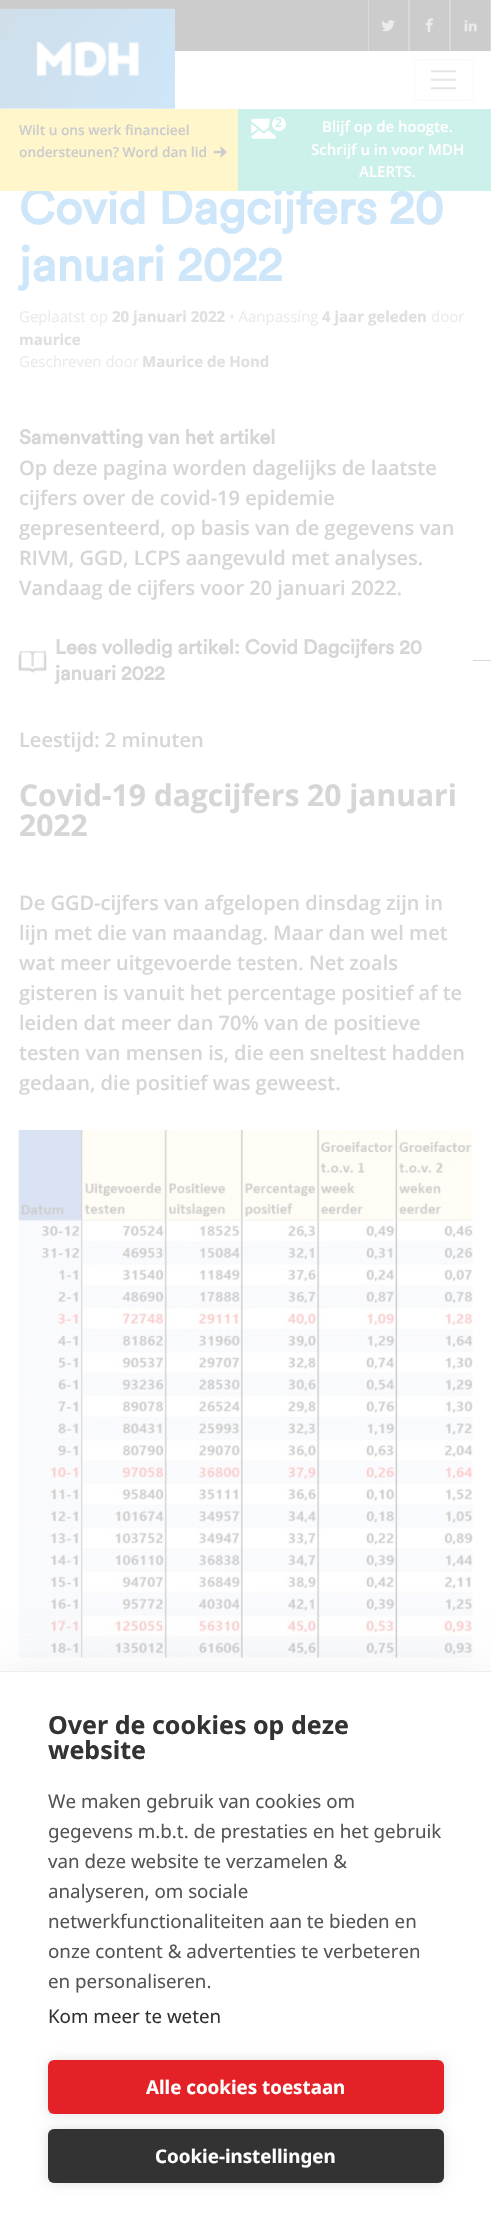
void draw(SkCanvas* canvas) {
    SkPaint paint;
    paint.setAntiAlias(true);
    auto face = [&](const char* family, int weight, float size, bool italic = false) {
        SkFontStyle style(weight, SkFontStyle::kNormal_Width,
            italic ? SkFontStyle::kItalic_Slant : SkFontStyle::kUpright_Slant);
        SkFont result(fontMgr->matchFamilyStyle(family, style), size);
        result.setSubpixel(true);
        return result;
    };
    auto write = [&](const char* s, float x, float y, const SkFont& font, SkColor color) {
        SkPaint ink(SkColor4f::FromColor(color));
        ink.setAntiAlias(true);
        canvas->drawString(s, x, y, font, ink);
    };
    auto block = [&](float x, float y, float w, float h, SkColor color) {
        SkPaint ink(SkColor4f::FromColor(color));
        ink.setAntiAlias(true);
        canvas->drawRect(SkRect::MakeXYWH(x, y, w, h), ink);
    };
    auto card = [&](float x, float y, float w, float h, float radius, SkColor color) {
        SkPaint ink(SkColor4f::FromColor(color));
        ink.setAntiAlias(true);
        canvas->drawRoundRect(SkRect::MakeXYWH(x, y, w, h), radius, radius, ink);
    };
    auto paste = [&](const char* path, float x, float y, float w, float h) {
        auto image = SkImages::DeferredFromEncodedData(SkData::MakeFromFileName(path));
        canvas->drawImageRect(image, SkRect::MakeXYWH(x, y, w, h), SkSamplingOptions());
    };
    canvas->clear(SK_ColorWHITE);
    block(0, 0, 490, 51, SkColorSetRGB(204, 204, 204));
    block(408, 0, 2, 51, SkColorSetRGB(217, 217, 217));
    block(368, 0, 1, 51, SkColorSetRGB(217, 217, 217));
    paste("pic1.png", 381, 20, 14, 12);
    block(449, 0, 2, 51, SkColorSetRGB(217, 217, 217));
    paste("pic2.png", 425, 18, 8, 15);
    block(490, 0, 1, 51, SkColorSetRGB(217, 217, 217));
    paste("pic3.png", 464, 20, 13, 12);
    paste("pic4.png", 0, 8, 175, 101);
    paint.setStyle(SkPaint::kStroke_Style);
    paint.setStrokeWidth(1);
    paint.setColor(SkColorSetRGB(249, 249, 249));
    canvas->drawRoundRect(SkRect::MakeXYWH(414.5f, 59.5f, 59, 41), 3.5f, 3.5f, paint);
    paste("pic5.png", 430, 70, 27, 20);
    auto kFont1 = face("Circular", 700, 47.9f);
    write("Covid Dagcijfers 20", 19, 224, kFont1, SkColorSetRGB(206, 230, 249));
    block(0, 109, 238, 82, SkColorSetRGB(255, 246, 204));
    auto kFont2 = face("Open Sans", 600, 13.75f);
    write("Wilt u ons werk financieel", 19, 135, kFont2, SkColorSetRGB(204, 204, 204));
    write("ondersteunen? Word dan lid", 19, 157, kFont2, SkColorSetRGB(204, 204, 204));
    paste("pic6.png", 213, 146, 14, 13);
    block(238, 109, 253, 82, SkColorSetRGB(204, 241, 234));
    paste("pic7.png", 251, 118, 26, 21);
    paint.setStyle(SkPaint::kFill_Style);
    paint.setColor(SK_ColorWHITE);
    canvas->drawCircle(279, 124, 8.5f, paint);
    paint.setStyle(SkPaint::kStroke_Style);
    paint.setStrokeWidth(3);
    paint.setColor(SkColorSetRGB(204, 241, 234));
    canvas->drawCircle(279, 124, 8.5f, paint);
    auto kFont3 = face("Open Sans", 700, 12);
    write("2", 275, 127, kFont3, SkColorSetRGB(204, 241, 234));
    auto kFont4 = face("Open Sans", 600, 15);
    write("Blijf op de hoogte.", 322, 132, kFont4, SK_ColorWHITE);
    write("Schrijf u in voor MDH", 311, 155, kFont4, SK_ColorWHITE);
    write("ALERTS.", 359, 177, kFont4, SK_ColorWHITE);
    write("januari 2022", 19, 281, kFont1, SkColorSetRGB(206, 230, 249));
    auto kFont5 = face("Open Sans", 400, 15);
    write("Geplaatst op", 19, 322, kFont5, SkColorSetRGB(235, 235, 235));
    auto kFont6 = face("Open Sans", 700, 15);
    write("20 januari 2022", 112, 322, kFont6, SkColorSetRGB(224, 224, 224));
    write("• Aanpassing", 229, 322, kFont5, SkColorSetRGB(235, 235, 235));
    write("4 jaar geleden", 322, 322, kFont6, SkColorSetRGB(224, 224, 224));
    write("door", 431, 322, kFont5, SkColorSetRGB(235, 235, 235));
    write("maurice", 19, 345, kFont6, SkColorSetRGB(224, 224, 224));
    write("Geschreven door", 19, 367, kFont5, SkColorSetRGB(235, 235, 235));
    write("Maurice de Hond", 142, 367, kFont6, SkColorSetRGB(224, 224, 224));
    auto kFont7 = face("Circular", 700, 20);
    write("Samenvatting van het artikel", 19, 444, kFont7, SkColorSetRGB(214, 214, 214));
    auto kFont8 = face("Open Sans", 600, 20);
    write("Op deze pagina worden dagelijks de laatste", 19, 475, kFont8, SkColorSetRGB(214, 214, 214));
    write("cijfers over de covid-19 epidemie", 19, 505, kFont8, SkColorSetRGB(214, 214, 214));
    write("gepresenteerd, op basis van de gegevens van", 19, 535, kFont8, SkColorSetRGB(214, 214, 214));
    write("RIVM, GGD, LCPS aangevuld met analyses.", 19, 565, kFont8, SkColorSetRGB(214, 214, 214));
    write("Vandaag de cijfers voor 20 januari 2022.", 19, 595, kFont8, SkColorSetRGB(214, 214, 214));
    paste("pic8.png", 18, 651, 29, 22);
    write("Lees volledig artikel: Covid Dagcijfers 20", 55, 654, kFont7, SkColorSetRGB(214, 214, 214));
    write("januari 2022", 55, 680, kFont7, SkColorSetRGB(214, 214, 214));
    block(473, 660, 18, 1, SkColorSetRGB(216, 216, 216));
    write("Leestijd: 2 minuten", 19, 747, kFont8, SkColorSetRGB(214, 214, 214));
    auto kFont9 = face("Open Sans", 700, 30);
    write("Covid-19 dagcijfers 20 januari", 19, 806, kFont9, SkColorSetRGB(214, 214, 214));
    write("2022", 19, 836, kFont9, SkColorSetRGB(214, 214, 214));
    write("De GGD-cijfers van afgelopen dinsdag zijn in", 19, 910, kFont8, SkColorSetRGB(214, 214, 214));
    write("lijn met die van maandag. Maar dan wel met", 19, 940, kFont8, SkColorSetRGB(214, 214, 214));
    write("wat meer uitgevoerde testen. Net zoals", 19, 970, kFont8, SkColorSetRGB(214, 214, 214));
    write("gisteren is vanuit het percentage positief af te", 19, 1000, kFont8, SkColorSetRGB(214, 214, 214));
    write("leiden dat meer dan 70% van de positieve", 19, 1030, kFont8, SkColorSetRGB(214, 214, 214));
    write("testen van mensen is, die een sneltest hadden", 19, 1060, kFont8, SkColorSetRGB(214, 214, 214));
    write("gedaan, die positief was geweest.", 19, 1090, kFont8, SkColorSetRGB(214, 214, 214));
    paste("pic9.png", 18, 1130, 455, 528);
    paint.setStyle(SkPaint::kFill_Style);
    paint.setColor(SkColorSetARGB(26, 0, 0, 0));
    paint.setMaskFilter(SkMaskFilter::MakeBlur(kNormal_SkBlurStyle, 25));
    canvas->drawRect(SkRect::MakeXYWH(0, 1684, 491, 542), paint);
    paint.setMaskFilter(nullptr);
    block(0, 1672, 491, 541, SK_ColorWHITE);
    block(0, 1671, 491, 1, SkColorSetRGB(238, 238, 238));
    auto kFont10 = face("Noto Sans", 700, 25);
    write("Over de cookies op deze", 48, 1734, kFont10, SkColorSetRGB(51, 51, 51));
    write("website", 48, 1759, kFont10, SkColorSetRGB(51, 51, 51));
    auto kFont11 = face("Noto Sans", 400, 18.75f);
    write("We maken gebruik van cookies om", 48, 1808, kFont11, SkColorSetRGB(85, 85, 85));
    write("gegevens m.b.t. de prestaties en het gebruik", 48, 1838, kFont11, SkColorSetRGB(85, 85, 85));
    write("van deze website te verzamelen &", 48, 1868, kFont11, SkColorSetRGB(85, 85, 85));
    write("analyseren, om sociale", 48, 1898, kFont11, SkColorSetRGB(85, 85, 85));
    write("netwerkfunctionaliteiten aan te bieden en", 48, 1928, kFont11, SkColorSetRGB(85, 85, 85));
    write("onze content & advertenties te verbeteren", 48, 1958, kFont11, SkColorSetRGB(85, 85, 85));
    write("en personaliseren.", 48, 1988, kFont11, SkColorSetRGB(85, 85, 85));
    write("Kom meer te weten", 48, 2023, kFont11, SkColorSetRGB(51, 51, 51));
    paint.setColor(SkColorSetARGB(31, 0, 0, 0));
    paint.setMaskFilter(SkMaskFilter::MakeBlur(kNormal_SkBlurStyle, 6));
    canvas->drawRoundRect(SkRect::MakeXYWH(48, 2060, 396, 54), 6, 6, paint);
    paint.setMaskFilter(nullptr);
    card(48, 2060, 396, 54, 6, SkColorSetRGB(228, 33, 39));
    auto kFont12 = face("Noto Sans", 700, 18.75f);
    write("Alle cookies toestaan", 146, 2094, kFont12, SK_ColorWHITE);
    paint.setMaskFilter(SkMaskFilter::MakeBlur(kNormal_SkBlurStyle, 6));
    canvas->drawRoundRect(SkRect::MakeXYWH(48, 2129, 396, 54), 6, 6, paint);
    paint.setMaskFilter(nullptr);
    card(48, 2129, 396, 54, 6, SkColorSetRGB(51, 51, 51));
    write("Cookie-instellingen", 155, 2163, kFont12, SK_ColorWHITE);
}
